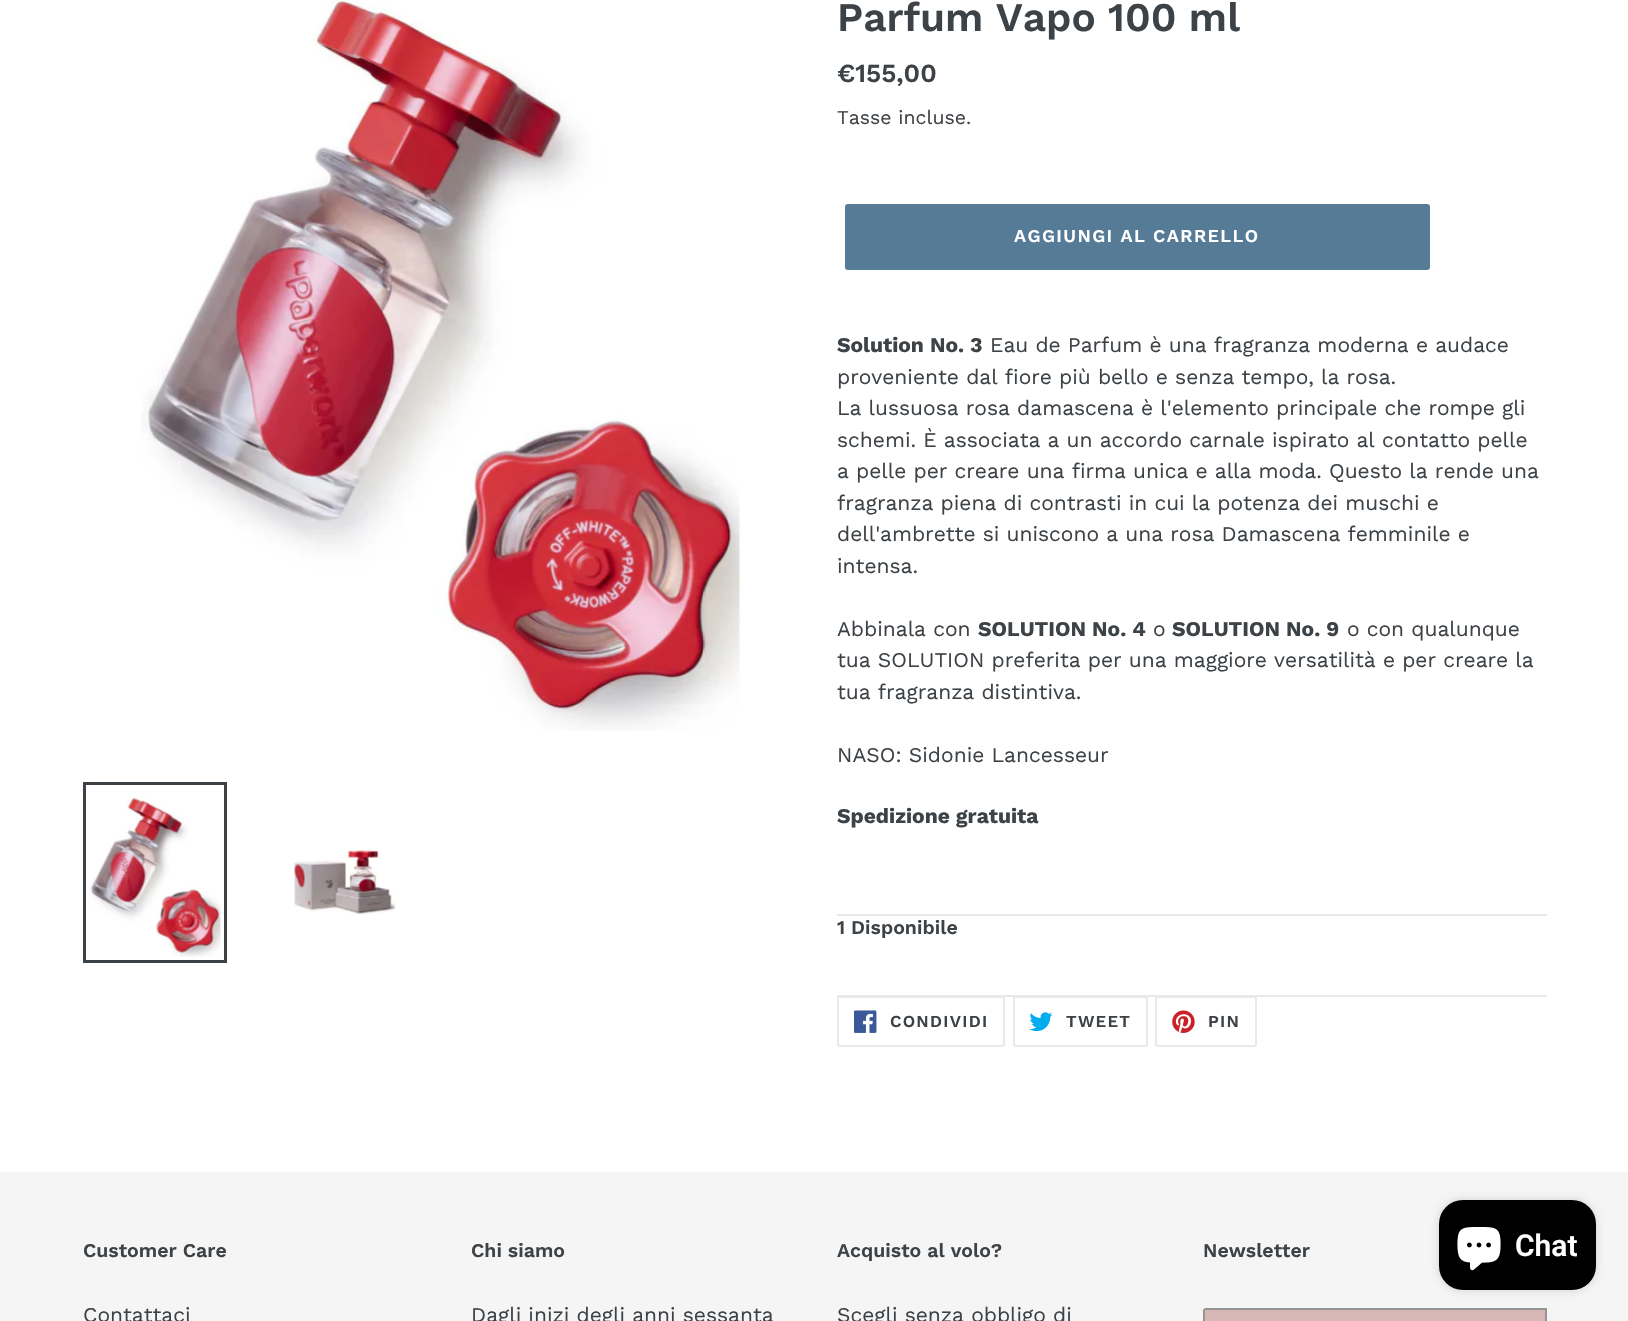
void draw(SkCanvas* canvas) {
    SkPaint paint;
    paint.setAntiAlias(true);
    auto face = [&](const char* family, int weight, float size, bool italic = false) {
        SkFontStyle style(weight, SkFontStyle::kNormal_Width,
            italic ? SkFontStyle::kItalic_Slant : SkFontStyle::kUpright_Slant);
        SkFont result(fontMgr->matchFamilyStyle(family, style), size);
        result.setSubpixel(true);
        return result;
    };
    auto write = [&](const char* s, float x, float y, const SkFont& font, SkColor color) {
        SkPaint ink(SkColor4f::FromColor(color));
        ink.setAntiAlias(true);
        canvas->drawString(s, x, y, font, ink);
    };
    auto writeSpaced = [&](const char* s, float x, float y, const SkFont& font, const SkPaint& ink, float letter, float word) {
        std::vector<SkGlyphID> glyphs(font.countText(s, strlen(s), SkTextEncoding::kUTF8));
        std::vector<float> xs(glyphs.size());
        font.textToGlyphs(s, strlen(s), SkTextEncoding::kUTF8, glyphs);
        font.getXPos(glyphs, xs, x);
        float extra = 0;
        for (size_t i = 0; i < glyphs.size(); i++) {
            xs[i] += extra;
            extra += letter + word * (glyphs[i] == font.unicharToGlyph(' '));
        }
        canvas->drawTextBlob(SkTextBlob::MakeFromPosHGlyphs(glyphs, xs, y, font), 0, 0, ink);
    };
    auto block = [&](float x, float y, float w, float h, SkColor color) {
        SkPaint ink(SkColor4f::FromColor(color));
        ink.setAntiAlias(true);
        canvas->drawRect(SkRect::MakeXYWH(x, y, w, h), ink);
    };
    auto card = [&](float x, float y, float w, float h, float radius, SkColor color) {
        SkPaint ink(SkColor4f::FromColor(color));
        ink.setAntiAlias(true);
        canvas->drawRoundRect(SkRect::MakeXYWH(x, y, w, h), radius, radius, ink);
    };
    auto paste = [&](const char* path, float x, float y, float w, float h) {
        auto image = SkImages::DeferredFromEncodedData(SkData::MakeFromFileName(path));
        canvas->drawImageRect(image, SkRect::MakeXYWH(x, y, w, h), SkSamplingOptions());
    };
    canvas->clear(SK_ColorWHITE);
    paste("pic1.png", 141, 0, 600, 731);
    paint.setStyle(SkPaint::kStroke_Style);
    paint.setStrokeWidth(3);
    paint.setColor(SkColorSetRGB(61, 66, 70));
    canvas->drawRect(SkRect::MakeXYWH(84.5f, 783.5f, 141, 178), paint);
    paste("pic2.png", 89, 797, 132, 160);
    paste("pic3.png", 294, 850, 102, 65);
    auto kFont1 = face("Work Sans", 600, 40.5f);
    write("Parfum Vapo 100 ml", 837, 31, kFont1, SkColorSetRGB(61, 66, 70));
    auto kFont2 = face("Work Sans", 600, 26);
    write("€155,00", 837, 82, kFont2, SkColorSetRGB(61, 66, 70));
    auto kFont3 = face("Work Sans", 400, 19.5f);
    write("Tasse incluse.", 837, 124, kFont3, SkColorSetRGB(61, 66, 70));
    card(845, 204, 585, 66, 3, SkColorSetRGB(85, 123, 151));
    auto kFont4 = face("Work Sans", 600, 18);
    paint.setStyle(SkPaint::kFill_Style);
    paint.setColor(SK_ColorWHITE);
    writeSpaced("AGGIUNGI AL CARRELLO", 1014, 242, kFont4, paint, 1.4f, 0);
    auto kFont5 = face("Work Sans", 700, 21);
    write("Solution No. 3", 837, 352, kFont5, SkColorSetRGB(61, 66, 70));
    auto kFont6 = face("Work Sans", 400, 21);
    write("Eau de Parfum è una fragranza moderna e audace", 990, 352, kFont6, SkColorSetRGB(61, 66, 70));
    write("proveniente dal fiore più bello e senza tempo, la rosa.", 837, 384, kFont6, SkColorSetRGB(61, 66, 70));
    write("La lussuosa rosa damascena è l'elemento principale che rompe gli", 837, 415, kFont6, SkColorSetRGB(61, 66, 70));
    write("schemi. È associata a un accordo carnale ispirato al contatto pelle", 837, 447, kFont6, SkColorSetRGB(61, 66, 70));
    write("a pelle per creare una firma unica e alla moda. Questo la rende una", 837, 478, kFont6, SkColorSetRGB(61, 66, 70));
    write("fragranza piena di contrasti in cui la potenza dei muschi e", 837, 510, kFont6, SkColorSetRGB(61, 66, 70));
    write("dell'ambrette si uniscono a una rosa Damascena femminile e", 837, 541, kFont6, SkColorSetRGB(61, 66, 70));
    write("intensa.", 837, 573, kFont6, SkColorSetRGB(61, 66, 70));
    write("Abbinala con", 837, 636, kFont6, SkColorSetRGB(61, 66, 70));
    write("SOLUTION No. 4", 978, 636, kFont5, SkColorSetRGB(61, 66, 70));
    write("o", 1153, 636, kFont6, SkColorSetRGB(61, 66, 70));
    write("SOLUTION No. 9", 1172, 636, kFont5, SkColorSetRGB(61, 66, 70));
    write("o con qualunque", 1347, 636, kFont6, SkColorSetRGB(61, 66, 70));
    write("tua SOLUTION preferita per una maggiore versatilità e per creare la", 837, 667, kFont6, SkColorSetRGB(61, 66, 70));
    write("tua fragranza distintiva.", 837, 699, kFont6, SkColorSetRGB(61, 66, 70));
    write("NASO: Sidonie Lancesseur", 837, 762, kFont6, SkColorSetRGB(61, 66, 70));
    write("Spedizione gratuita", 837, 823, kFont5, SkColorSetRGB(61, 66, 70));
    block(837, 914, 710, 2, SkColorSetRGB(232, 233, 235));
    auto kFont7 = face("Work Sans", 600, 19.5f);
    write("1 Disponibile", 837, 934, kFont7, SkColorSetRGB(61, 66, 70));
    paint.setStyle(SkPaint::kStroke_Style);
    paint.setStrokeWidth(2);
    paint.setColor(SkColorSetRGB(232, 233, 235));
    canvas->drawRoundRect(SkRect::MakeXYWH(838, 997, 166, 49), 2, 2, paint);
    canvas->drawRoundRect(SkRect::MakeXYWH(1014, 997, 133, 49), 2, 2, paint);
    canvas->drawRoundRect(SkRect::MakeXYWH(1156, 997, 100, 49), 2, 2, paint);
    block(837, 995, 710, 2, SkColorSetRGB(232, 233, 235));
    paste("pic4.png", 854, 1010, 23, 23);
    auto kFont8 = face("Work Sans", 600, 16.75f);
    paint.setStyle(SkPaint::kFill_Style);
    paint.setColor(SkColorSetRGB(61, 66, 70));
    writeSpaced("CONDIVIDI", 890, 1027, kFont8, paint, 1.25f, 0);
    paste("pic5.png", 1029, 1012, 24, 20);
    writeSpaced("TWEET", 1066, 1027, kFont8, paint, 1.25f, 0);
    paste("pic6.png", 1172, 1010, 23, 23);
    writeSpaced("PIN", 1208, 1027, kFont8, paint, 1.25f, 0);
    block(0, 1172, 1628, 149, SkColorSetRGB(245, 245, 245));
    write("Customer Care", 83, 1257, kFont7, SkColorSetRGB(61, 66, 70));
    write("Contattaci", 83, 1322, kFont6, SkColorSetRGB(61, 66, 70));
    write("Chi siamo", 471, 1257, kFont7, SkColorSetRGB(61, 66, 70));
    write("Dagli inizi degli anni sessanta", 471, 1322, kFont6, SkColorSetRGB(61, 66, 70));
    write("Acquisto al volo?", 837, 1257, kFont7, SkColorSetRGB(61, 66, 70));
    write("Scegli senza obbligo di", 837, 1322, kFont6, SkColorSetRGB(61, 66, 70));
    write("Newsletter", 1203, 1257, kFont7, SkColorSetRGB(61, 66, 70));
    paint.setColor(SkColorSetRGB(215, 182, 182));
    canvas->drawPath(SkPathBuilder().moveTo(1206, 1309).lineTo(1546, 1309).lineTo(1546, 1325).lineTo(1206, 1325).cubicTo(1205, 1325, 1204, 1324, 1204, 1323).lineTo(1204, 1311).cubicTo(1204, 1310, 1205, 1309, 1206, 1309).close().detach(), paint);
    paint.setStyle(SkPaint::kStroke_Style);
    paint.setColor(SkColorSetRGB(148, 148, 148));
    canvas->drawPath(SkPathBuilder().moveTo(1206, 1309).lineTo(1546, 1309).lineTo(1546, 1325).lineTo(1206, 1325).cubicTo(1205, 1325, 1204, 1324, 1204, 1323).lineTo(1204, 1311).cubicTo(1204, 1310, 1205, 1309, 1206, 1309).close().detach(), paint);
    paint.setStyle(SkPaint::kFill_Style);
    paint.setColor(SkColorSetARGB(38, 0, 0, 0));
    paint.setMaskFilter(SkMaskFilter::MakeBlur(kNormal_SkBlurStyle, 4));
    canvas->drawRoundRect(SkRect::MakeXYWH(1439, 1200, 157, 90), 24, 24, paint);
    paint.setMaskFilter(nullptr);
    card(1439, 1200, 157, 90, 24, SK_ColorBLACK);
    paste("pic7.png", 1457, 1227, 44, 44);
    auto kFont9 = face("Roboto", 600, 30);
    write("Chat", 1515, 1256, kFont9, SK_ColorWHITE);
}
